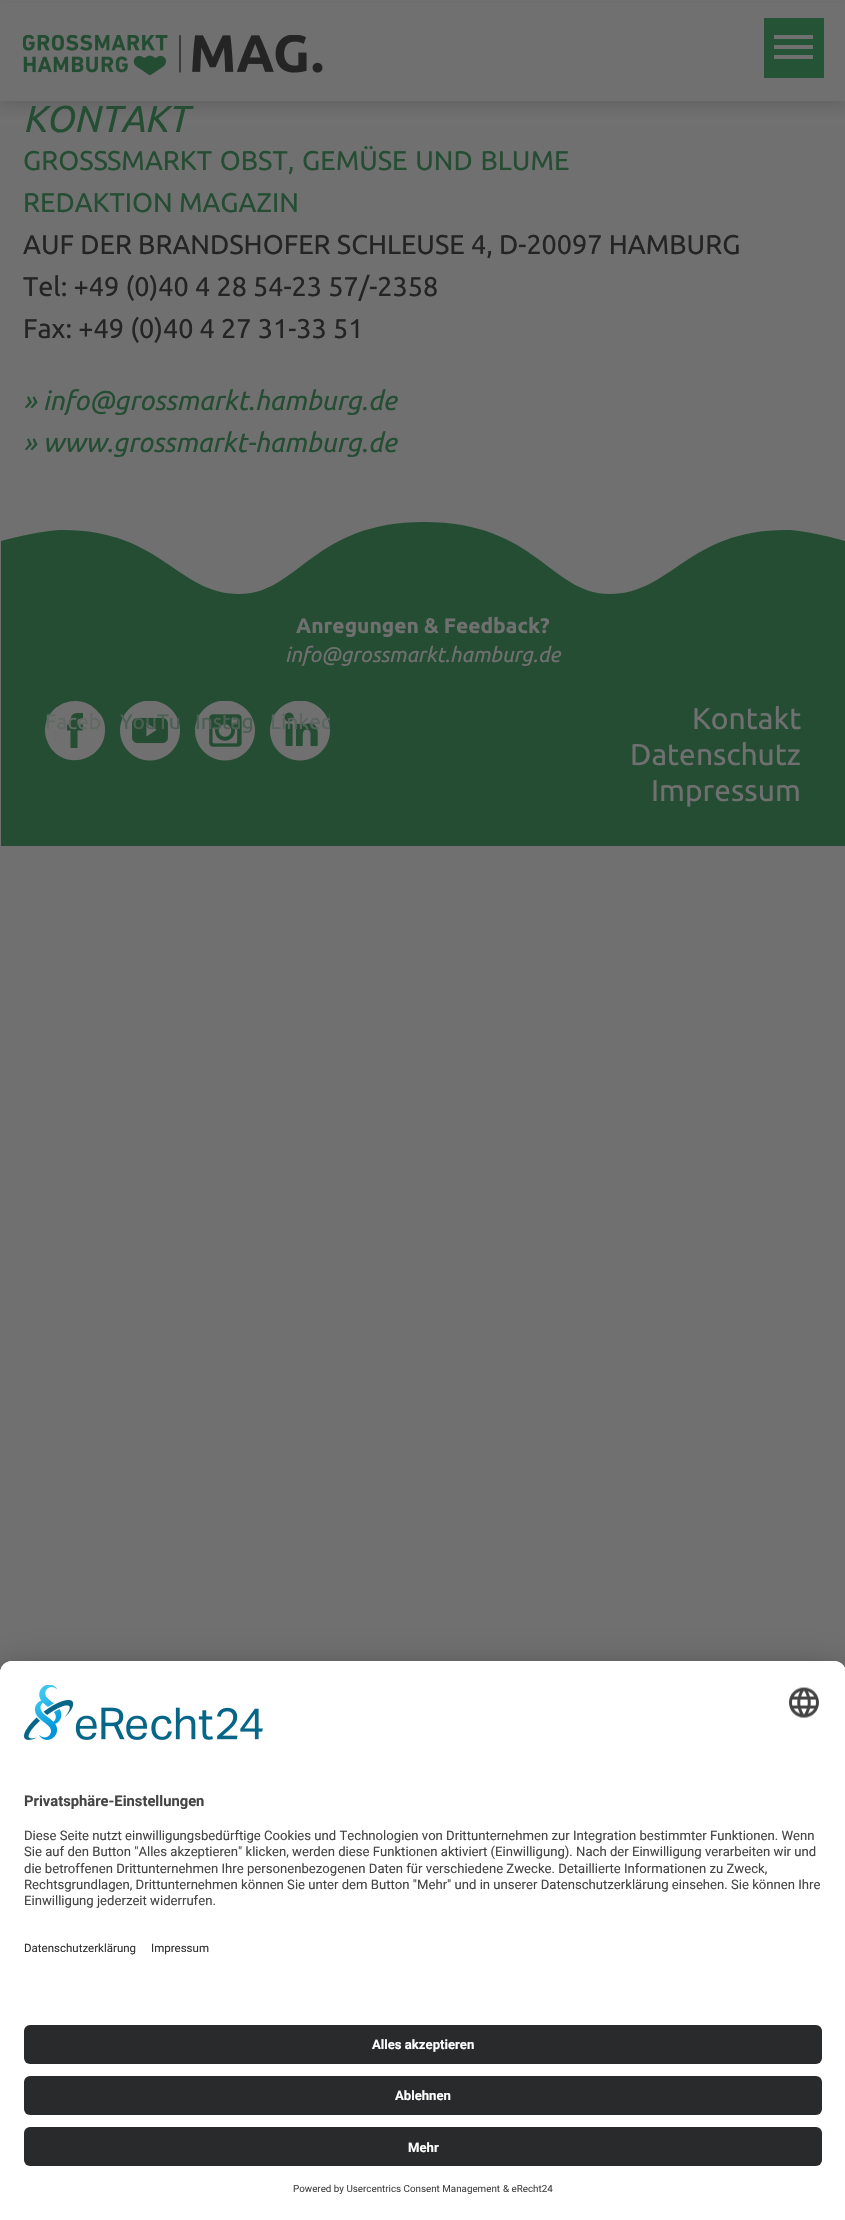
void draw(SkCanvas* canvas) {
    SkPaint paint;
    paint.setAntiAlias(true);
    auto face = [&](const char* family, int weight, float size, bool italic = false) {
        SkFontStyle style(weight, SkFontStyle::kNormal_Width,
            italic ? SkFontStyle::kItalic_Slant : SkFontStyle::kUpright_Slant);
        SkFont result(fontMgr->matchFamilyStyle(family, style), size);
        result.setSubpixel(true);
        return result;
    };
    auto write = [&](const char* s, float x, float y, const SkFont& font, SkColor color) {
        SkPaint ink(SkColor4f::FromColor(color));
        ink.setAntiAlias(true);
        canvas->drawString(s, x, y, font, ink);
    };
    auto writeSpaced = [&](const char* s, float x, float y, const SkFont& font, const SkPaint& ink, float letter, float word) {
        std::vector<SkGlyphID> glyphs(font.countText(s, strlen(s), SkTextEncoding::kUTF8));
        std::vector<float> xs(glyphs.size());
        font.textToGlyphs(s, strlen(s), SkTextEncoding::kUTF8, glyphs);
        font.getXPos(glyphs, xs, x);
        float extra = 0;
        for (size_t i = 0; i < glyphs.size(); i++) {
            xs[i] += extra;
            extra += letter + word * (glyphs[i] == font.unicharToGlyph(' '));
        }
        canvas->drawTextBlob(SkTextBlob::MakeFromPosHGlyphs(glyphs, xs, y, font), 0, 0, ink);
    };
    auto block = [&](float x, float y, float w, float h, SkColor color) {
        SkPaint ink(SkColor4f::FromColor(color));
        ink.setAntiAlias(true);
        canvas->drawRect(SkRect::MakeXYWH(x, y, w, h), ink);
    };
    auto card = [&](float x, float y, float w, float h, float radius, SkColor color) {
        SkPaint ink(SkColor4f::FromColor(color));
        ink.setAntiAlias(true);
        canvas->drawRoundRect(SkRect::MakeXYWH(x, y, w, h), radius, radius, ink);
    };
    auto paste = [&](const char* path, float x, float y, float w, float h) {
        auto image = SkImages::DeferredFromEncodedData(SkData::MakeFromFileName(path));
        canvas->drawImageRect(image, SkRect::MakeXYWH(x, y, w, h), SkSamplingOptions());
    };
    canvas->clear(SkColorSetRGB(112, 112, 112));
    paint.setColor(SkColorSetARGB(41, 36, 36, 36));
    paint.setMaskFilter(SkMaskFilter::MakeBlur(kNormal_SkBlurStyle, 6));
    canvas->drawRect(SkRect::MakeXYWH(0, 8, 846, 100), paint);
    paint.setMaskFilter(nullptr);
    block(0, 3, 845, 98, SkColorSetRGB(112, 112, 112));
    paste("pic1.png", 23, 35, 300, 40);
    block(764, 18, 60, 60, SkColorSetRGB(36, 84, 53));
    block(774, 35, 39, 4, SkColorSetRGB(112, 112, 112));
    block(774, 45, 39, 4, SkColorSetRGB(112, 112, 112));
    block(774, 55, 39, 4, SkColorSetRGB(112, 112, 112));
    auto kFont1 = face("Ubuntu", 400, 37.5f, true);
    write("KONTAKT", 23, 132, kFont1, SkColorSetRGB(36, 77, 51));
    auto kFont2 = face("Ubuntu", 400, 27);
    write("GROSS", 23, 170, kFont2, SkColorSetRGB(36, 77, 51));
    paint.setColor(SkColorSetRGB(36, 77, 51));
    writeSpaced("SMARKT OBST, GEMÜSE UND BLUME", 107, 170, kFont2, paint, 0, 1.5f);
    write("REDAKTION MAGAZIN", 23, 212, kFont2, SkColorSetRGB(36, 77, 51));
    write("AUF DER BRANDSHOFER SCHLEUSE 4, D-20097 HAMBURG", 23, 254, kFont2, SkColorSetRGB(36, 36, 36));
    write("Tel: +49 (0)40 4 28 54-23 57/-2358", 23, 296, kFont2, SkColorSetRGB(36, 36, 36));
    write("Fax: +49 (0)40 4 27 31-33 51", 23, 338, kFont2, SkColorSetRGB(36, 36, 36));
    auto kFont3 = face("Ubuntu", 400, 27, true);
    write("» info@grossmarkt.hamburg.de", 23, 410, kFont3, SkColorSetRGB(36, 77, 51));
    write("» www.grossmarkt-hamburg.de", 23, 452, kFont3, SkColorSetRGB(36, 77, 51));
    canvas->save();
    canvas->clipRect(SkRect::MakeXYWH(0, 522, 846, 324));
    canvas->drawPath(SkPathBuilder().moveTo(424, 522).cubicTo(312, 522, 299, 594, 239, 594).cubicTo(178, 594, 161, 530, 63, 530).cubicTo(41, 530, 1, 541, 1, 541).lineTo(1, 1697).lineTo(845, 1697).lineTo(845, 541).cubicTo(845, 541, 807, 530, 786, 530).cubicTo(688, 530, 671, 594, 610, 594).cubicTo(550, 594, 537, 522, 424, 522).detach(), paint);
    canvas->restore();
    auto kFont4 = face("Ubuntu", 700, 21);
    write("Anregungen & Feedback?", 296, 633, kFont4, SkColorSetRGB(112, 112, 112));
    auto kFont5 = face("Ubuntu", 400, 21, true);
    write("info@grossmarkt.hamburg.de", 285, 662, kFont5, SkColorSetRGB(112, 112, 112));
    paint.setColor(SkColorSetRGB(112, 112, 112));
    canvas->drawPath(SkPathBuilder().moveTo(45, 731).cubicTo(45, 702, 82, 690, 99, 713).cubicTo(103, 717, 105, 723, 105, 729).cubicTo(106, 759, 67, 772, 50, 747).cubicTo(47, 742, 45, 736, 45, 731).detach(), paint);
    paint.setColor(SkColorSetRGB(36, 77, 51));
    canvas->drawPath(SkPathBuilder().moveTo(82.5f, 730.5f).lineTo(77.5f, 730.5f).lineTo(77.5f, 748).lineTo(70.5f, 748).lineTo(70.5f, 730.5f).lineTo(67, 730.5f).lineTo(67, 724.5f).lineTo(70.5f, 724.5f).cubicTo(70.5f, 713, 72.5f, 713, 83, 713).lineTo(83, 719).cubicTo(77, 719, 77.5f, 718.5f, 77.5f, 724.5f).lineTo(83, 724.5f).close().detach(), paint);
    auto kFont6 = face("Ubuntu", 400, 21);
    write("Faceb", 45, 729, kFont6, SkColorSetRGB(97, 105, 100));
    paste("pic2.png", 120, 701, 60, 60);
    write("YouTu", 120, 729, kFont6, SkColorSetRGB(76, 95, 83));
    paste("pic3.png", 195, 701, 60, 60);
    write("Instag", 195, 729, kFont6, SkColorSetRGB(76, 95, 83));
    paste("pic4.png", 270, 701, 60, 60);
    canvas->save();
    canvas->clipRect(SkRect::MakeXYWH(270, 701, 60, 60));
    write("Linked", 270, 729, kFont6, SkColorSetRGB(89, 101, 94));
    canvas->restore();
    auto kFont7 = face("Ubuntu", 400, 30);
    write("Kontakt", 692, 729, kFont7, SkColorSetRGB(112, 112, 112));
    write("Datenschutz", 630, 765, kFont7, SkColorSetRGB(112, 112, 112));
    write("Impressum", 651, 801, kFont7, SkColorSetRGB(112, 112, 112));
    paint.setColor(SkColorSetARGB(77, 0, 0, 0));
    paint.setMaskFilter(SkMaskFilter::MakeBlur(kNormal_SkBlurStyle, 21));
    canvas->drawRoundRect(SkRect::MakeXYWH(0, 1691, 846, 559), 12, 12, paint);
    paint.setMaskFilter(nullptr);
    paint.setColor(SkColorSetARGB(56, 0, 0, 0));
    paint.setMaskFilter(SkMaskFilter::MakeBlur(kNormal_SkBlurStyle, 19.5f));
    canvas->drawRoundRect(SkRect::MakeXYWH(0, 1668, 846, 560), 12, 12, paint);
    paint.setMaskFilter(nullptr);
    paint.setColor(SK_ColorWHITE);
    canvas->drawPath(SkPathBuilder().moveTo(12, 1661).lineTo(834, 1661).cubicTo(840.5f, 1661, 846, 1666.5f, 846, 1673).lineTo(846, 2220).lineTo(0, 2220).lineTo(0, 1673).cubicTo(0, 1666.5f, 5.5f, 1661, 12, 1661).close().detach(), paint);
    canvas->drawPath(SkPathBuilder().moveTo(12, 1661).lineTo(834, 1661).cubicTo(840.5f, 1661, 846, 1666.5f, 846, 1673).lineTo(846, 2007).lineTo(0, 2007).lineTo(0, 1673).cubicTo(0, 1666.5f, 5.5f, 1661, 12, 1661).close().detach(), paint);
    paste("pic5.png", 24, 1685, 239, 55);
    paste("pic6.png", 789, 1687, 30, 31);
    auto kFont8 = face("Roboto", 700, 14.75f);
    write("Privatsphäre-Einstellungen", 24, 1806, kFont8, SkColorSetRGB(68, 68, 68));
    auto kFont9 = face("Roboto", 400, 13.12f);
    write("Diese Seite nutzt einwilligungsbedürftige Cookies und Technologien von Drittunternehmen zur Integration bestimmter Funktionen. Wenn", 24, 1840, kFont9, SkColorSetRGB(68, 68, 68));
    write("Sie auf den Button \"Alles akzeptieren\" klicken, werden diese Funktionen aktiviert (Einwilligung). Nach der Einwilligung verarbeiten wir und", 24, 1856, kFont9, SkColorSetRGB(68, 68, 68));
    write("die betroffenen Drittunternehmen Ihre personenbezogenen Daten für verschiedene Zwecke. Detaillierte Informationen zu Zweck,", 24, 1873, kFont9, SkColorSetRGB(68, 68, 68));
    write("Rechtsgrundlagen, Drittunternehmen können Sie unter dem Button \"Mehr\" und in unserer Datenschutzerklärung einsehen. Sie können Ihre", 24, 1889, kFont9, SkColorSetRGB(68, 68, 68));
    write("Einwilligung jederzeit widerrufen.", 24, 1905, kFont9, SkColorSetRGB(68, 68, 68));
    auto kFont10 = face("Roboto", 400, 11.5f);
    write("Datenschutzerklärung", 24, 1952, kFont10, SkColorSetRGB(48, 48, 48));
    write("Impressum", 151, 1952, kFont10, SkColorSetRGB(48, 48, 48));
    card(24, 2025, 798, 39, 6, SkColorSetRGB(41, 42, 43));
    auto kFont11 = face("Roboto", 700, 13.12f);
    write("Alles akzeptieren", 372, 2049, kFont11, SK_ColorWHITE);
    card(24, 2076, 798, 39, 6, SkColorSetRGB(41, 42, 43));
    write("Ablehnen", 395, 2100, kFont11, SK_ColorWHITE);
    card(24, 2127, 798, 39, 6, SkColorSetRGB(41, 42, 43));
    write("Mehr", 408, 2152, kFont11, SK_ColorWHITE);
    auto kFont12 = face("Roboto", 400, 9.8f);
    write("Powered by Usercentrics Consent Management", 293, 2192, kFont12, SkColorSetRGB(68, 68, 68));
    write("& eRecht24", 503, 2192, kFont12, SkColorSetRGB(68, 68, 68));
}
